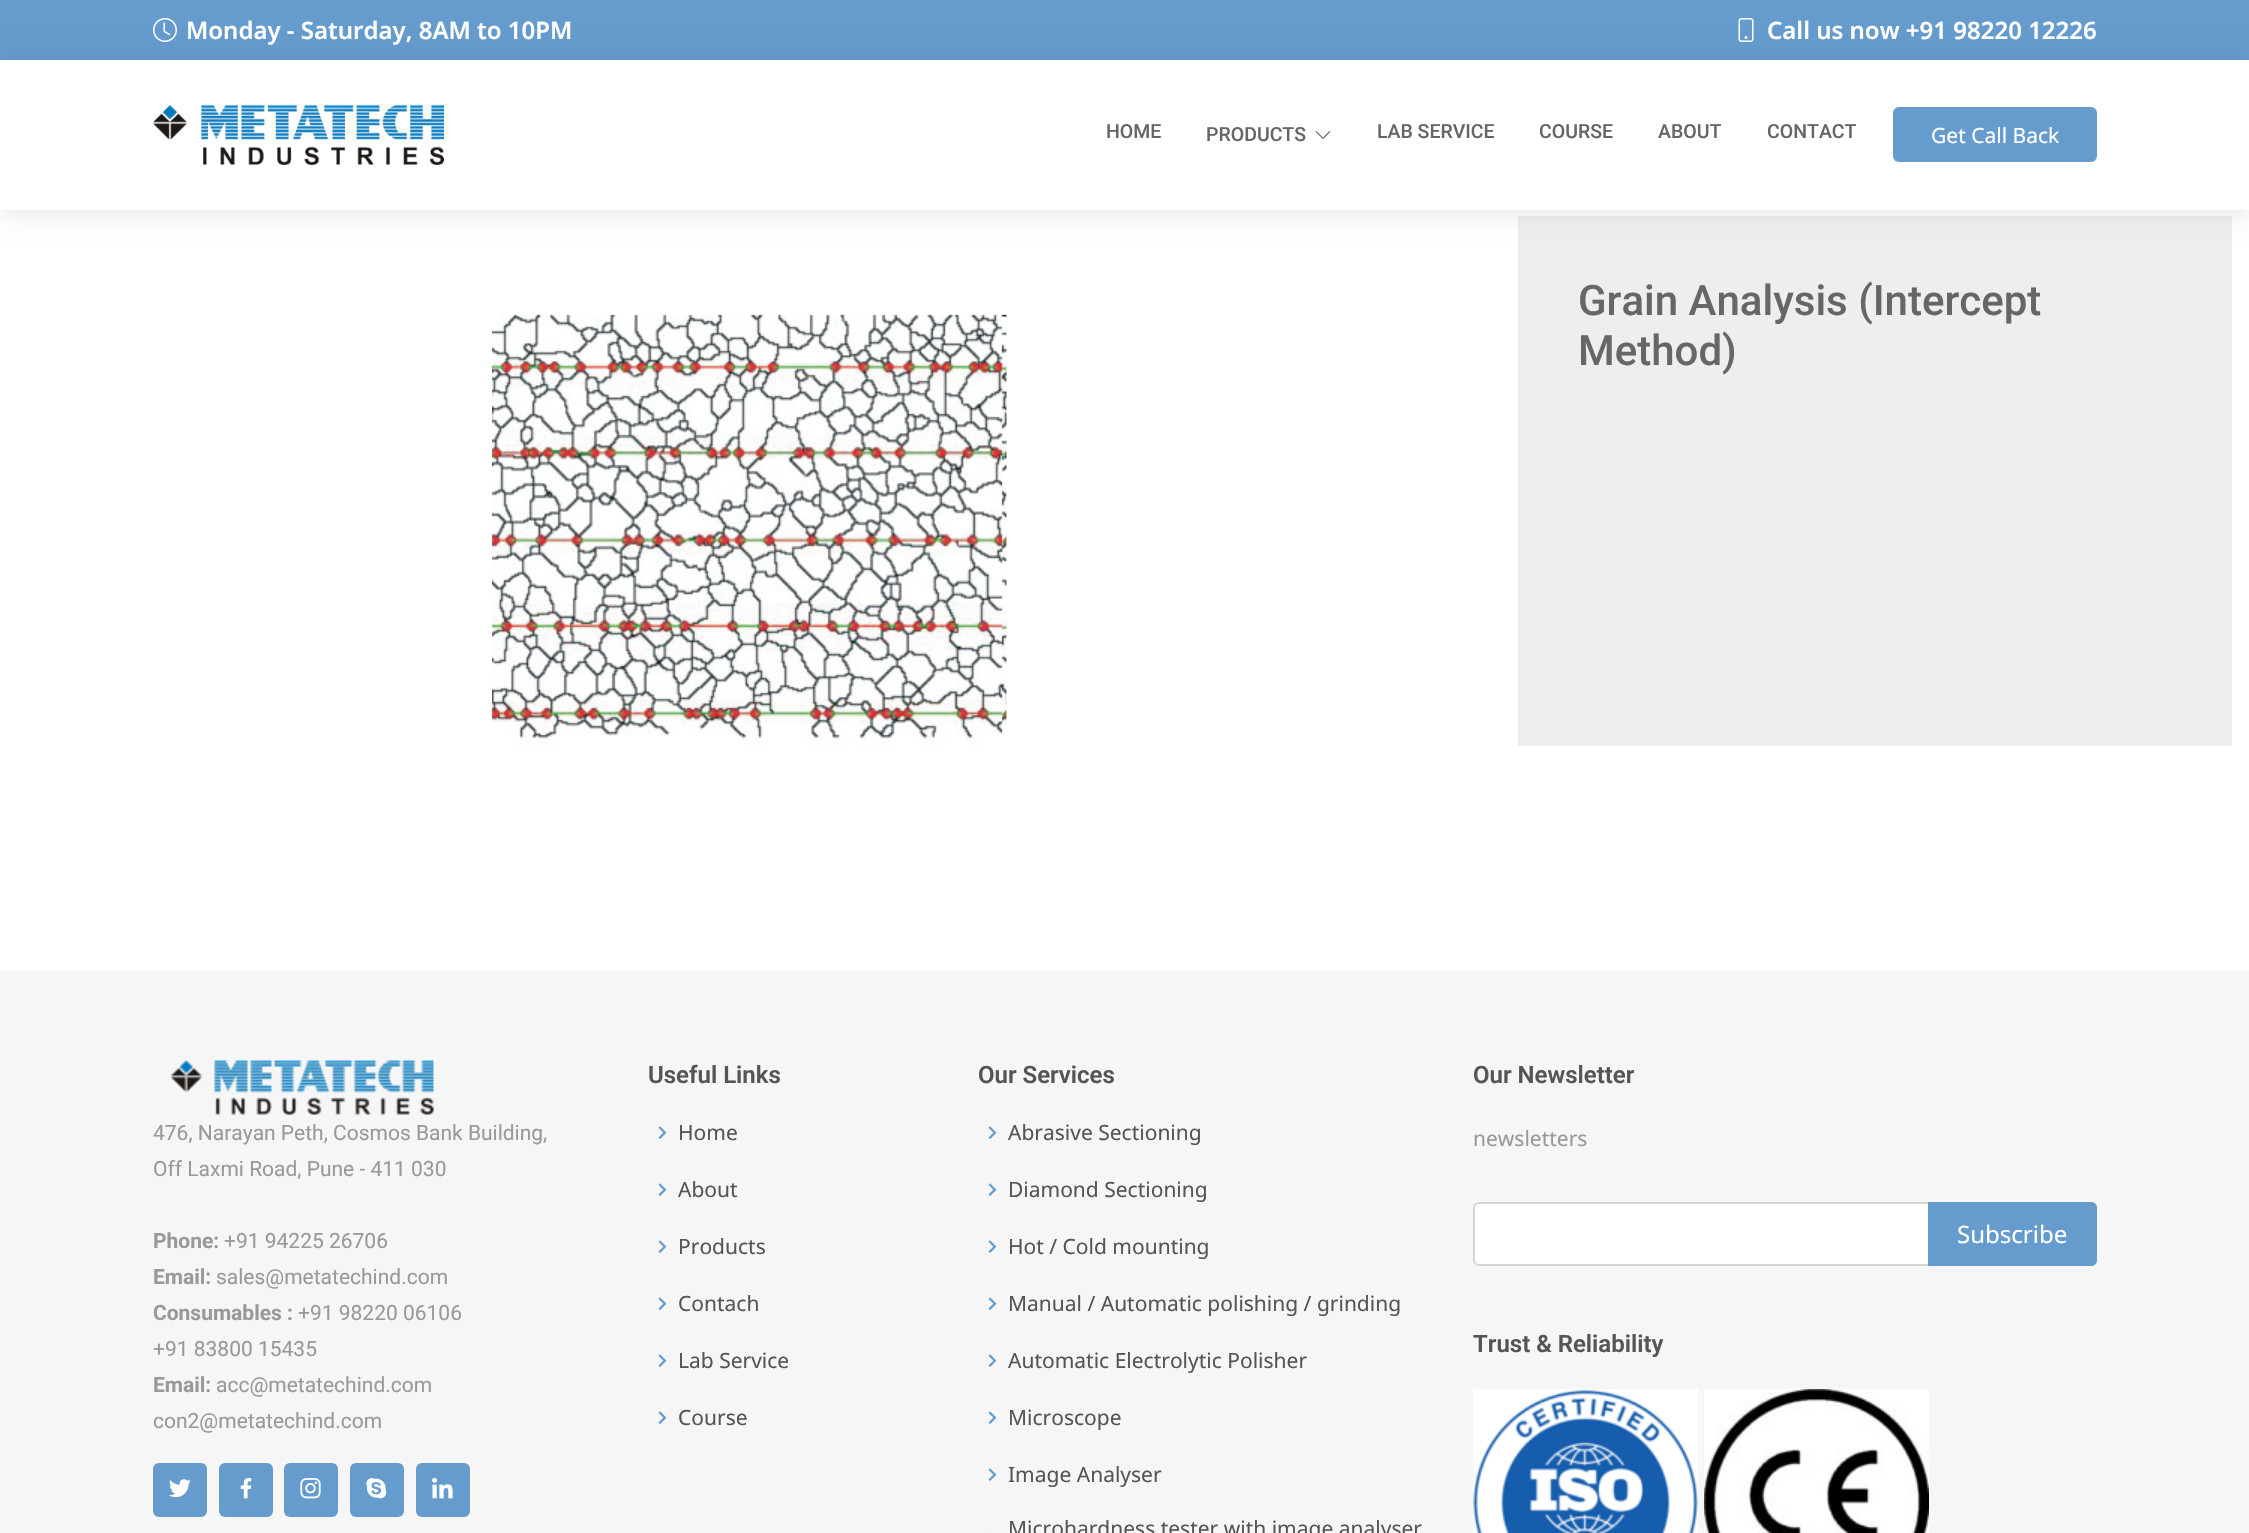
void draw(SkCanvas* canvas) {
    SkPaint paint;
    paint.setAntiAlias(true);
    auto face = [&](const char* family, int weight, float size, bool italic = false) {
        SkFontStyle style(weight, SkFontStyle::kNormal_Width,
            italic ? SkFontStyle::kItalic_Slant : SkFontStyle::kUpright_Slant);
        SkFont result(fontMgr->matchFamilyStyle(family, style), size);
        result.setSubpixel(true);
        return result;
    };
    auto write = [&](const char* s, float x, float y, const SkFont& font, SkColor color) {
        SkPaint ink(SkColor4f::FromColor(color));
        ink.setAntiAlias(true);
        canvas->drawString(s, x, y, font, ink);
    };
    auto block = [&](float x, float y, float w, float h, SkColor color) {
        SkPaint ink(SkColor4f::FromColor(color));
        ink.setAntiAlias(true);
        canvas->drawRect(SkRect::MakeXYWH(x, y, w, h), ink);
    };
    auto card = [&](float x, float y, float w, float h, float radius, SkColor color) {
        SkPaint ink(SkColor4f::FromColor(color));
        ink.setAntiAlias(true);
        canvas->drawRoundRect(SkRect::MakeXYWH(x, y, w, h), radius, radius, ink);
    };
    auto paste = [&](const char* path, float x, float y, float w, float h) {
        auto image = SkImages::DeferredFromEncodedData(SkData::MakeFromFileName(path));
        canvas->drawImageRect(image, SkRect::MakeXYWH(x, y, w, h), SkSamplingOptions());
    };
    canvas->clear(SK_ColorWHITE);
    block(0, 0, 2249, 60, SkColorSetRGB(101, 155, 205));
    paste("pic1.png", 153, 18, 24, 24);
    auto kFont1 = face("Noto Sans", 600, 24);
    write("Monday - Saturday, 8AM to 10PM", 186, 39, kFont1, SK_ColorWHITE);
    paste("pic2.png", 1738, 18, 16, 24);
    write("Call us now +91 98220 12226", 1767, 39, kFont1, SK_ColorWHITE);
    block(1518, 216, 714, 530, SkColorSetRGB(238, 238, 238));
    canvas->save();
    canvas->clipPath(SkPathBuilder(SkPathFillType::kEvenOdd).moveTo(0, 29).lineTo(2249, 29).lineTo(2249, 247).lineTo(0, 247).close().moveTo(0, 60).lineTo(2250, 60).lineTo(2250, 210).lineTo(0, 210).close().detach(), true);
    paint.setColor(SkColorSetARGB(26, 0, 0, 0));
    paint.setMaskFilter(SkMaskFilter::MakeBlur(kNormal_SkBlurStyle, 11));
    canvas->drawRect(SkRect::MakeXYWH(0, 63, 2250, 150), paint);
    paint.setMaskFilter(nullptr);
    canvas->restore();
    paste("pic3.png", 153, 104, 291, 61);
    auto kFont2 = face("Roboto", 500, 19.5f);
    write("HOME", 1106, 138, kFont2, SkColorSetRGB(102, 102, 102));
    write("PRODUCTS", 1206, 141, kFont2, SkColorSetRGB(102, 102, 102));
    paste("pic4.png", 1315, 131, 16, 8);
    write("LAB SERVICE", 1377, 138, kFont2, SkColorSetRGB(102, 102, 102));
    write("COURSE", 1539, 138, kFont2, SkColorSetRGB(102, 102, 102));
    write("ABOUT", 1658, 138, kFont2, SkColorSetRGB(102, 102, 102));
    write("CONTACT", 1767, 138, kFont2, SkColorSetRGB(102, 102, 102));
    card(1893, 107, 204, 55, 6, SkColorSetRGB(101, 155, 205));
    auto kFont3 = face("Noto Sans", 400, 21);
    write("Get Call Back", 1931, 143, kFont3, SK_ColorWHITE);
    paste("pic5.png", 492, 314, 515, 431);
    auto kFont4 = face("Roboto", 500, 42);
    write("Grain Analysis (Intercept", 1578, 315, kFont4, SkColorSetRGB(102, 102, 102));
    write("Method)", 1578, 365, kFont4, SkColorSetRGB(102, 102, 102));
    block(0, 971, 2249, 562, SkColorSetRGB(246, 246, 246));
    paste("pic6.png", 171, 1060, 263, 55);
    auto kFont5 = face("Roboto", 400, 21);
    write("476, Narayan Peth, Cosmos Bank Building,", 153, 1140, kFont5, SkColorSetRGB(153, 153, 153));
    write("Off Laxmi Road, Pune - 411 030", 153, 1176, kFont5, SkColorSetRGB(153, 153, 153));
    auto kFont6 = face("Roboto", 700, 21);
    write("Phone:", 153, 1248, kFont6, SkColorSetRGB(153, 153, 153));
    write("+91 94225 26706", 224, 1248, kFont5, SkColorSetRGB(153, 153, 153));
    write("Email:", 153, 1284, kFont6, SkColorSetRGB(153, 153, 153));
    write("sales@metatechind.com", 216, 1284, kFont5, SkColorSetRGB(153, 153, 153));
    write("Consumables :", 153, 1320, kFont6, SkColorSetRGB(153, 153, 153));
    write("+91 98220 06106", 298, 1320, kFont5, SkColorSetRGB(153, 153, 153));
    write("+91 83800 15435", 153, 1356, kFont5, SkColorSetRGB(153, 153, 153));
    write("Email:", 153, 1392, kFont6, SkColorSetRGB(153, 153, 153));
    write("acc@metatechind.com", 216, 1392, kFont5, SkColorSetRGB(153, 153, 153));
    write("con2@metatechind.com", 153, 1428, kFont5, SkColorSetRGB(153, 153, 153));
    card(153, 1463, 54, 54, 6, SkColorSetRGB(101, 155, 205));
    paste("pic7.png", 169, 1479, 22, 19);
    card(219, 1463, 54, 54, 6, SkColorSetRGB(101, 155, 205));
    paste("pic8.png", 240, 1478, 12, 21);
    card(284, 1463, 54, 54, 6, SkColorSetRGB(101, 155, 205));
    paste("pic9.png", 300, 1478, 21, 21);
    card(350, 1463, 54, 54, 6, SkColorSetRGB(101, 155, 205));
    paste("pic10.png", 366, 1478, 21, 21);
    card(416, 1463, 54, 54, 6, SkColorSetRGB(101, 155, 205));
    paste("pic11.png", 432, 1477, 21, 22);
    auto kFont7 = face("Roboto", 600, 24);
    write("Useful Links", 648, 1083, kFont7, SkColorSetRGB(85, 85, 85));
    paste("pic12.png", 658, 1126, 9, 13);
    write("Home", 678, 1140, kFont3, SkColorSetRGB(85, 85, 85));
    paste("pic12.png", 658, 1183, 9, 13);
    write("About", 678, 1197, kFont3, SkColorSetRGB(85, 85, 85));
    paste("pic12.png", 658, 1240, 9, 13);
    write("Products", 678, 1254, kFont3, SkColorSetRGB(85, 85, 85));
    paste("pic12.png", 658, 1297, 9, 13);
    write("Contach", 678, 1311, kFont3, SkColorSetRGB(85, 85, 85));
    paste("pic12.png", 658, 1354, 9, 13);
    write("Lab Service", 678, 1368, kFont3, SkColorSetRGB(85, 85, 85));
    paste("pic12.png", 658, 1411, 9, 13);
    write("Course", 678, 1425, kFont3, SkColorSetRGB(85, 85, 85));
    write("Our Services", 978, 1083, kFont7, SkColorSetRGB(85, 85, 85));
    paste("pic12.png", 988, 1126, 9, 13);
    write("Abrasive Sectioning", 1008, 1140, kFont3, SkColorSetRGB(85, 85, 85));
    paste("pic12.png", 988, 1183, 9, 13);
    write("Diamond Sectioning", 1008, 1197, kFont3, SkColorSetRGB(85, 85, 85));
    paste("pic12.png", 988, 1240, 9, 13);
    write("Hot / Cold mounting", 1008, 1254, kFont3, SkColorSetRGB(85, 85, 85));
    paste("pic12.png", 988, 1297, 9, 13);
    write("Manual / Automatic polishing / grinding", 1008, 1311, kFont3, SkColorSetRGB(85, 85, 85));
    paste("pic12.png", 988, 1354, 9, 13);
    write("Automatic Electrolytic Polisher", 1008, 1368, kFont3, SkColorSetRGB(85, 85, 85));
    paste("pic12.png", 988, 1411, 9, 13);
    write("Microscope", 1008, 1425, kFont3, SkColorSetRGB(85, 85, 85));
    paste("pic12.png", 988, 1468, 9, 13);
    write("Image Analyser", 1008, 1482, kFont3, SkColorSetRGB(85, 85, 85));
    block(990, 1532, 1, 1, SkColorSetRGB(240, 242, 244));
    write("Microhardness tester with image analyser", 1008, 1536, kFont3, SkColorSetRGB(85, 85, 85));
    write("Our Newsletter", 1473, 1083, kFont7, SkColorSetRGB(85, 85, 85));
    write("newsletters", 1473, 1146, kFont3, SkColorSetRGB(153, 153, 153));
    paint.setColor(SK_ColorWHITE);
    canvas->drawRoundRect(SkRect::MakeXYWH(1474, 1203, 622, 62), 5, 5, paint);
    paint.setStyle(SkPaint::kStroke_Style);
    paint.setStrokeWidth(2);
    paint.setColor(SkColorSetRGB(213, 213, 213));
    canvas->drawRoundRect(SkRect::MakeXYWH(1474, 1203, 622, 62), 5, 5, paint);
    paint.setStyle(SkPaint::kFill_Style);
    paint.setColor(SkColorSetRGB(101, 155, 205));
    canvas->drawPath(SkPathBuilder().moveTo(1928, 1202).lineTo(2091, 1202).cubicTo(2094.5f, 1202, 2097, 1204.5f, 2097, 1208).lineTo(2097, 1260).cubicTo(2097, 1263.5f, 2094.5f, 1266, 2091, 1266).lineTo(1928, 1266).close().detach(), paint);
    auto kFont8 = face("Noto Sans", 400, 24);
    write("Subscribe", 1957, 1243, kFont8, SK_ColorWHITE);
    write("Trust & Reliability", 1473, 1352, kFont7, SkColorSetRGB(85, 85, 85));
    paste("pic13.png", 1473, 1389, 225, 144);
    paste("pic14.png", 1704, 1389, 225, 144);
}
